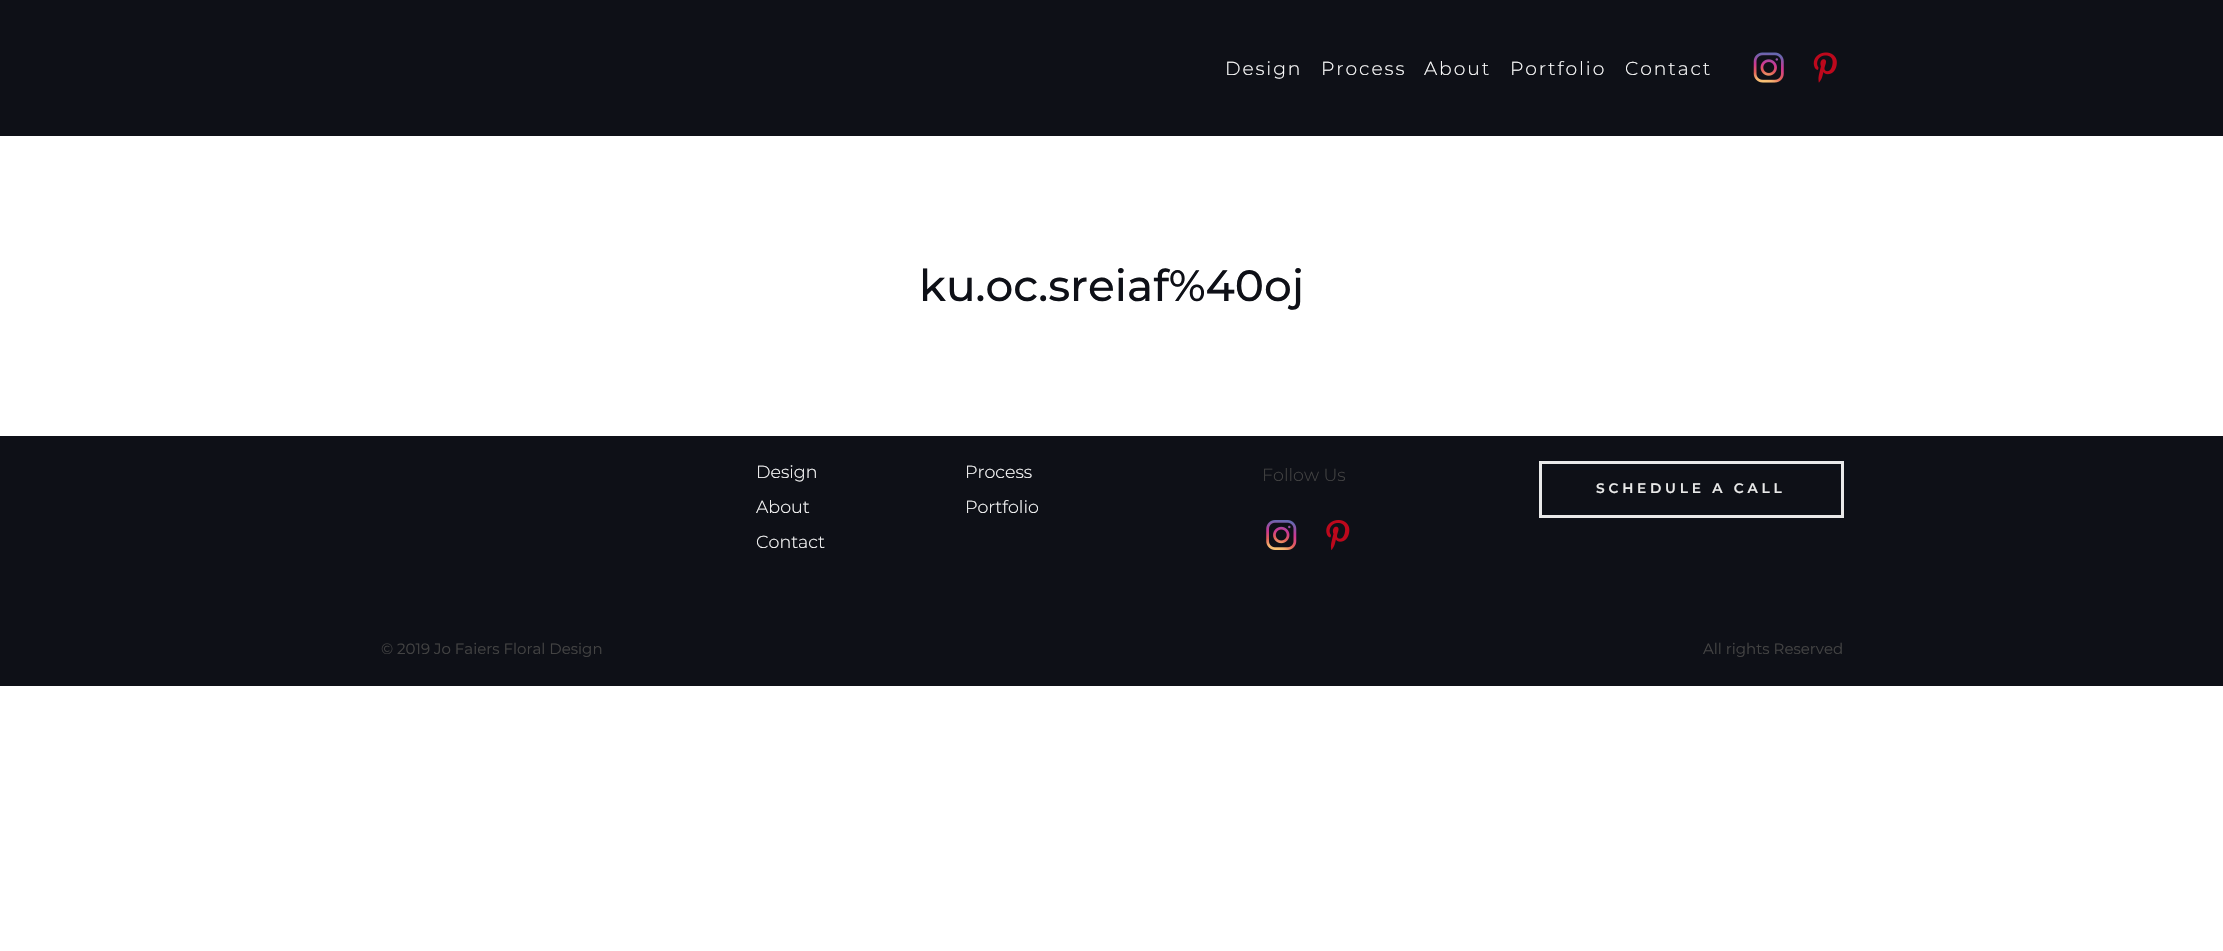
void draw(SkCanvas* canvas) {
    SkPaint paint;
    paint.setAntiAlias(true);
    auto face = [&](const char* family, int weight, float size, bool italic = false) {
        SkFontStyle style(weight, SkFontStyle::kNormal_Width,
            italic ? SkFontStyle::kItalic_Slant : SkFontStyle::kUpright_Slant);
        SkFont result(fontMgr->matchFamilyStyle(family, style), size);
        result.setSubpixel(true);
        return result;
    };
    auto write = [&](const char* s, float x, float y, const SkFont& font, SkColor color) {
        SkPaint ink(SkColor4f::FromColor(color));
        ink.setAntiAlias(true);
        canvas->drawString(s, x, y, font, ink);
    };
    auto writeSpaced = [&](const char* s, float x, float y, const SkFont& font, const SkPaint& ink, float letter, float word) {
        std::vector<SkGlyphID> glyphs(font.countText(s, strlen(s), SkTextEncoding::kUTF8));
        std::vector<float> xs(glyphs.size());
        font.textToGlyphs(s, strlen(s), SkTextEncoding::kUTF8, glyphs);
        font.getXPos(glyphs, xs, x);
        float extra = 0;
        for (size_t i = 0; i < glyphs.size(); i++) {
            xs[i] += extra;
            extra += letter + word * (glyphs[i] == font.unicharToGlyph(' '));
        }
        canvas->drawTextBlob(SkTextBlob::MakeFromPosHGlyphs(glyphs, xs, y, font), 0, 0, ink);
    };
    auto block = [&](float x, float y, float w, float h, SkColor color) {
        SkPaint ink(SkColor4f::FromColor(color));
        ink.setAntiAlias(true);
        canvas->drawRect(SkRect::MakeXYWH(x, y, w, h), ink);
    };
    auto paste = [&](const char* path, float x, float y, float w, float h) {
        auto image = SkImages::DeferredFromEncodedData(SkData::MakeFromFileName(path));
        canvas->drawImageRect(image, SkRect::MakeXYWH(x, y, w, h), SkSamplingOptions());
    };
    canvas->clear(SK_ColorWHITE);
    block(0, 0, 2223, 136, SkColorSetRGB(14, 16, 23));
    auto kFont1 = face("Montserrat", 300, 18.75f);
    paint.setColor(SK_ColorWHITE);
    writeSpaced("Design", 1225, 75, kFont1, paint, 1.9f, 0);
    writeSpaced("Process", 1321, 75, kFont1, paint, 1.9f, 0);
    writeSpaced("About", 1424, 75, kFont1, paint, 1.9f, 0);
    writeSpaced("Portfolio", 1510, 75, kFont1, paint, 1.9f, 0);
    writeSpaced("Contact", 1625, 75, kFont1, paint, 1.9f, 0);
    paste("pic1.png", 1753, 52, 31, 31);
    paste("pic2.png", 1813, 52, 24, 31);
    auto kFont2 = face("Montserrat", 500, 43.75f);
    write("ku.oc.sreiaf%40oj", 919, 301, kFont2, SkColorSetRGB(14, 16, 23));
    block(0, 436, 2223, 250, SkColorSetRGB(14, 16, 23));
    auto kFont3 = face("Montserrat", 300, 17.5f);
    write("Design", 756, 478, kFont3, SK_ColorWHITE);
    write("Process", 965, 478, kFont3, SK_ColorWHITE);
    write("About", 756, 513, kFont3, SK_ColorWHITE);
    write("Portfolio", 965, 513, kFont3, SK_ColorWHITE);
    write("Contact", 756, 548, kFont3, SK_ColorWHITE);
    write("Follow Us", 1262, 481, kFont3, SkColorSetRGB(67, 67, 67));
    paste("pic3.png", 1266, 520, 31, 30);
    paste("pic4.png", 1326, 520, 24, 30);
    paint.setStyle(SkPaint::kStroke_Style);
    paint.setStrokeWidth(3);
    paint.setColor(SkColorSetRGB(233, 233, 233));
    canvas->drawRect(SkRect::MakeXYWH(1540.5f, 462.5f, 302, 54), paint);
    auto kFont4 = face("Montserrat", 600, 13.75f);
    paint.setStyle(SkPaint::kFill_Style);
    writeSpaced("SCHEDULE A CALL", 1596, 493, kFont4, paint, 3.75f, 0);
    auto kFont5 = face("Montserrat", 400, 15);
    write("© 2019 Jo Faiers Floral Design", 381, 654, kFont5, SkColorSetRGB(67, 67, 67));
    write("All rights Reserved", 1703, 654, kFont5, SkColorSetRGB(67, 67, 67));
}
